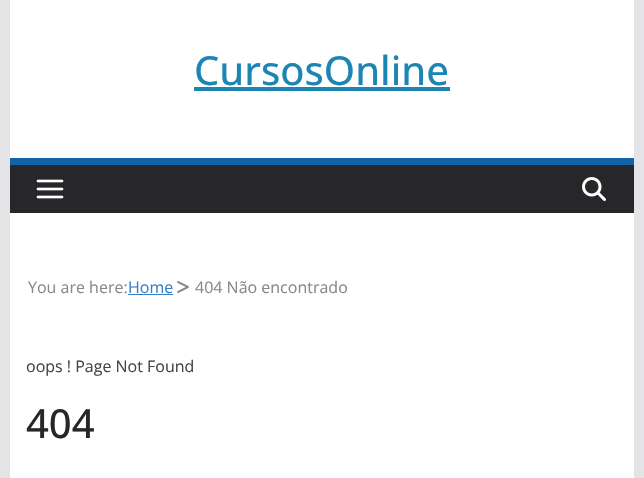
void draw(SkCanvas* canvas) {
    SkPaint paint;
    paint.setAntiAlias(true);
    auto face = [&](const char* family, int weight, float size, bool italic = false) {
        SkFontStyle style(weight, SkFontStyle::kNormal_Width,
            italic ? SkFontStyle::kItalic_Slant : SkFontStyle::kUpright_Slant);
        SkFont result(fontMgr->matchFamilyStyle(family, style), size);
        result.setSubpixel(true);
        return result;
    };
    auto write = [&](const char* s, float x, float y, const SkFont& font, SkColor color) {
        SkPaint ink(SkColor4f::FromColor(color));
        ink.setAntiAlias(true);
        canvas->drawString(s, x, y, font, ink);
    };
    auto block = [&](float x, float y, float w, float h, SkColor color) {
        SkPaint ink(SkColor4f::FromColor(color));
        ink.setAntiAlias(true);
        canvas->drawRect(SkRect::MakeXYWH(x, y, w, h), ink);
    };
    auto paste = [&](const char* path, float x, float y, float w, float h) {
        auto image = SkImages::DeferredFromEncodedData(SkData::MakeFromFileName(path));
        canvas->drawImageRect(image, SkRect::MakeXYWH(x, y, w, h), SkSamplingOptions());
    };
    canvas->clear(SkColorSetRGB(228, 228, 231));
    block(10, 0, 624, 158, SK_ColorWHITE);
    auto kFont1 = face("Open Sans", 500, 40);
    write("CursosOnline", 194, 85, kFont1, SkColorSetRGB(29, 133, 179));
    block(194, 87, 256, 4, SkColorSetRGB(29, 133, 179));
    block(10, 165, 624, 48, SkColorSetRGB(39, 39, 42));
    block(10, 158, 624, 7, SkColorSetRGB(18, 99, 170));
    paste("pic1.png", 36, 179, 28, 20);
    paste("pic2.png", 582, 177, 24, 24);
    block(10, 213, 624, 265, SK_ColorWHITE);
    auto kFont2 = face("Open Sans", 400, 16);
    write("You are here:", 28, 293, kFont2, SkColorSetRGB(136, 136, 136));
    write("Home", 128, 293, kFont2, SkColorSetRGB(49, 129, 200));
    block(128, 294, 45, 1, SkColorSetRGB(49, 129, 200));
    paste("pic3.png", 177, 281, 12, 12);
    write("404 Não encontrado", 195, 293, kFont2, SkColorSetRGB(136, 136, 136));
    write("oops ! Page Not Found", 26, 372, kFont2, SkColorSetRGB(68, 68, 68));
    write("404", 26, 438, kFont1, SkColorSetRGB(39, 39, 42));
}
